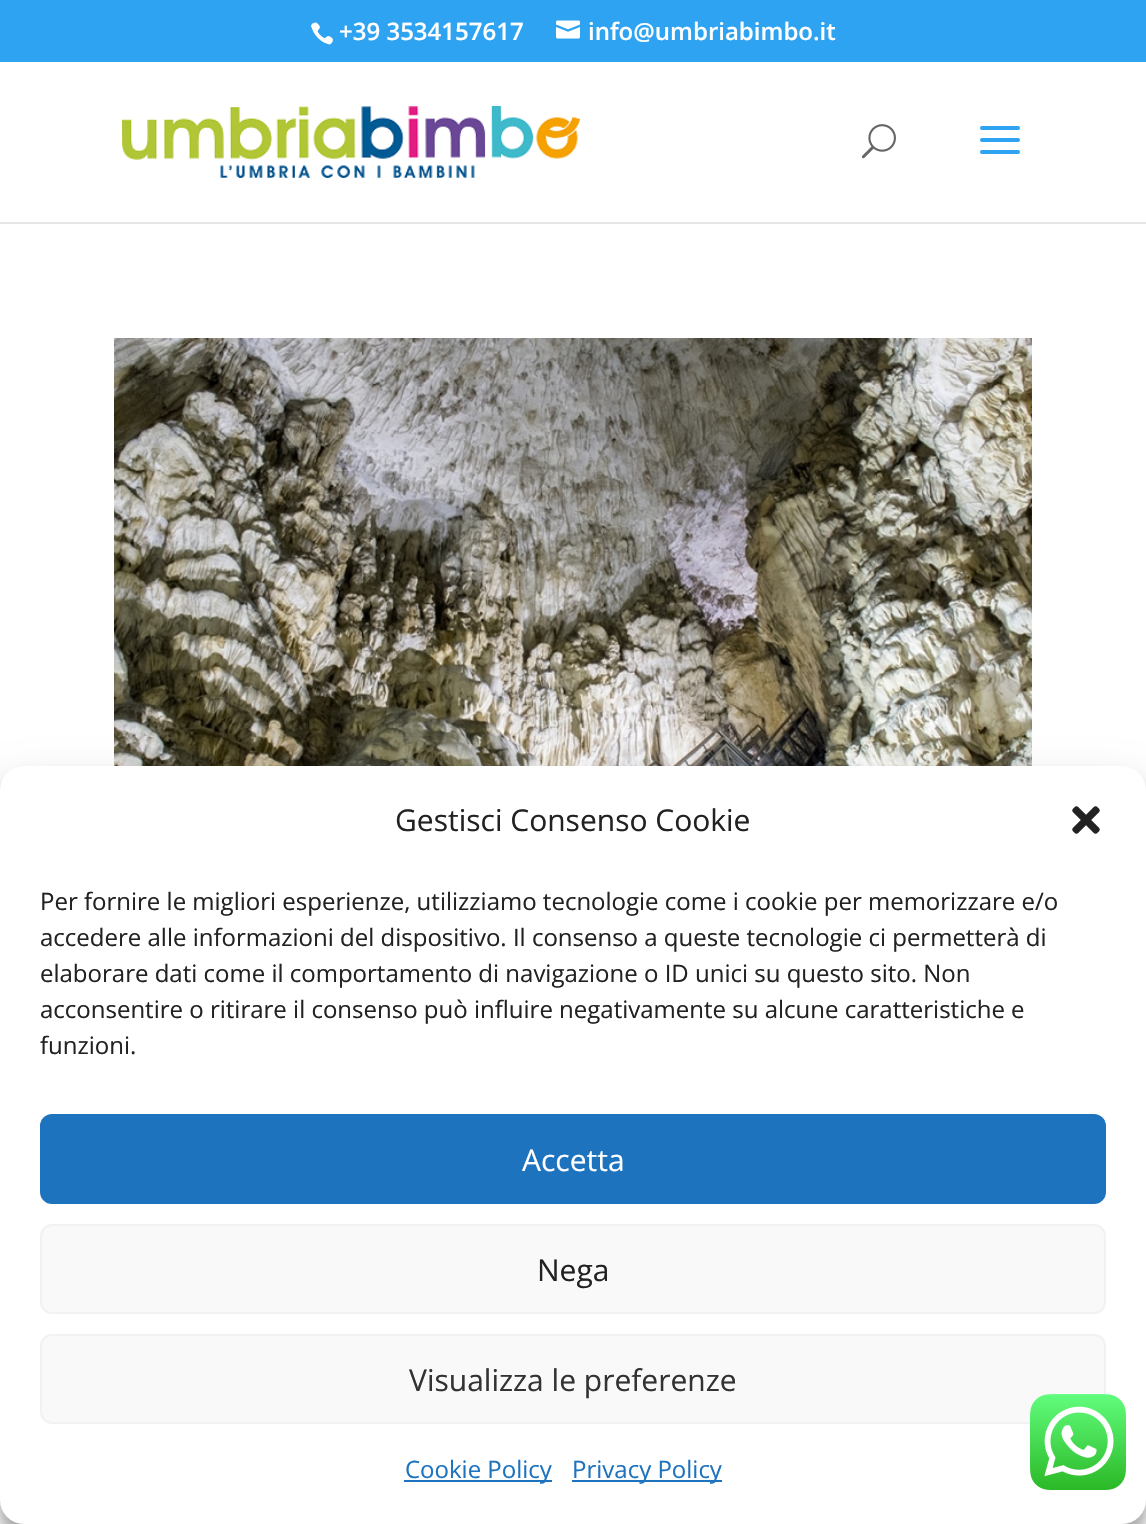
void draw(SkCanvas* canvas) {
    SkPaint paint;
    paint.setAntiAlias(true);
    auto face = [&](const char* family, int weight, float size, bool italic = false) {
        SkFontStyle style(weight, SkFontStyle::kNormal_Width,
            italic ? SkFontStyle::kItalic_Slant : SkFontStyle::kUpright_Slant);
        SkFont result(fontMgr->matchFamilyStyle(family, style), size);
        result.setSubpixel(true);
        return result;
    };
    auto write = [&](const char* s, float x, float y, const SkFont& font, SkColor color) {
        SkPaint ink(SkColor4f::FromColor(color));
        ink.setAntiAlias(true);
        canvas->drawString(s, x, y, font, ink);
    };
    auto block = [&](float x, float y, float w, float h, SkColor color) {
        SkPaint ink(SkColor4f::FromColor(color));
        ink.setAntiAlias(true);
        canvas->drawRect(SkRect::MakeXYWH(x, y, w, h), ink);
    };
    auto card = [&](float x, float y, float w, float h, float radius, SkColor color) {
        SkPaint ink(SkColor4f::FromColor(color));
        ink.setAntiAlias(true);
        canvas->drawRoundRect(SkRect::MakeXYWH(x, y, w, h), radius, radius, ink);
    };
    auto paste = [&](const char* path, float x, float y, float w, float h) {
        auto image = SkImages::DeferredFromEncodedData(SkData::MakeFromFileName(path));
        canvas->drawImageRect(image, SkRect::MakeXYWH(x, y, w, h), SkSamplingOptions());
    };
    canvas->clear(SK_ColorWHITE);
    block(0, 0, 1146, 62, SkColorSetRGB(46, 163, 242));
    paste("pic1.png", 311, 22, 22, 23);
    auto kFont1 = face("Open Sans", 600, 24);
    write("+39 3534157617", 339, 40, kFont1, SK_ColorWHITE);
    paste("pic2.png", 556, 20, 24, 19);
    write("info@umbriabimbo.it", 588, 40, kFont1, SK_ColorWHITE);
    block(0, 222, 1146, 2, SkColorSetRGB(230, 230, 230));
    paste("pic3.png", 122, 106, 458, 72);
    paste("pic4.png", 861, 124, 35, 35);
    paste("pic5.png", 980, 126, 40, 28);
    paste("pic6.png", 114, 338, 918, 428);
    paint.setColor(SkColorSetARGB(59, 0, 0, 0));
    paint.setMaskFilter(SkMaskFilter::MakeBlur(kNormal_SkBlurStyle, 6));
    canvas->drawRoundRect(SkRect::MakeXYWH(0, 778, 1146, 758), 24, 24, paint);
    paint.setMaskFilter(nullptr);
    paint.setColor(SkColorSetARGB(48, 0, 0, 0));
    paint.setMaskFilter(SkMaskFilter::MakeBlur(kNormal_SkBlurStyle, 20));
    canvas->drawRoundRect(SkRect::MakeXYWH(0, 786, 1146, 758), 24, 24, paint);
    paint.setMaskFilter(nullptr);
    card(0, 766, 1146, 758, 24, SK_ColorWHITE);
    auto kFont2 = face("Open Sans", 400, 30);
    write("Gestisci Consenso Cookie", 395, 831, kFont2, SkColorSetRGB(34, 34, 34));
    paste("pic7.png", 1072, 806, 28, 28);
    auto kFont3 = face("Open Sans", 400, 24);
    write("Per fornire le migliori esperienze, utilizziamo tecnologie come i cookie per memorizzare e/o", 40, 910, kFont3, SkColorSetRGB(34, 34, 34));
    write("accedere alle informazioni del dispositivo. Il consenso a queste tecnologie ci permetterà di", 40, 946, kFont3, SkColorSetRGB(34, 34, 34));
    write("elaborare dati come il comportamento di navigazione o ID unici su questo sito. Non", 40, 982, kFont3, SkColorSetRGB(34, 34, 34));
    write("acconsentire o ritirare il consenso può influire negativamente su alcune caratteristiche e", 40, 1018, kFont3, SkColorSetRGB(34, 34, 34));
    write("funzioni.", 40, 1054, kFont3, SkColorSetRGB(34, 34, 34));
    paint.setColor(SkColorSetRGB(30, 115, 190));
    canvas->drawRoundRect(SkRect::MakeXYWH(41, 1115, 1064, 88), 11, 11, paint);
    paint.setStyle(SkPaint::kStroke_Style);
    paint.setStrokeWidth(2);
    canvas->drawRoundRect(SkRect::MakeXYWH(41, 1115, 1064, 88), 11, 11, paint);
    write("Accetta", 522, 1171, kFont2, SK_ColorWHITE);
    paint.setStyle(SkPaint::kFill_Style);
    paint.setColor(SkColorSetRGB(249, 249, 249));
    canvas->drawRoundRect(SkRect::MakeXYWH(41, 1225, 1064, 88), 11, 11, paint);
    paint.setStyle(SkPaint::kStroke_Style);
    paint.setColor(SkColorSetRGB(242, 242, 242));
    canvas->drawRoundRect(SkRect::MakeXYWH(41, 1225, 1064, 88), 11, 11, paint);
    write("Nega", 537, 1281, kFont2, SkColorSetRGB(34, 34, 34));
    paint.setStyle(SkPaint::kFill_Style);
    paint.setColor(SkColorSetRGB(249, 249, 249));
    canvas->drawRoundRect(SkRect::MakeXYWH(41, 1335, 1064, 88), 11, 11, paint);
    paint.setStyle(SkPaint::kStroke_Style);
    paint.setColor(SkColorSetRGB(242, 242, 242));
    canvas->drawRoundRect(SkRect::MakeXYWH(41, 1335, 1064, 88), 11, 11, paint);
    write("Visualizza le preferenze", 409, 1391, kFont2, SkColorSetRGB(51, 51, 51));
    block(404, 1480, 148, 2, SkColorSetRGB(30, 115, 190));
    write("Cookie Policy", 405, 1478, kFont3, SkColorSetRGB(30, 115, 190));
    block(572, 1480, 150, 2, SkColorSetRGB(30, 115, 190));
    write("Privacy Policy", 572, 1478, kFont3, SkColorSetRGB(30, 115, 190));
    paste("pic8.png", 1030, 1394, 96, 96);
}
